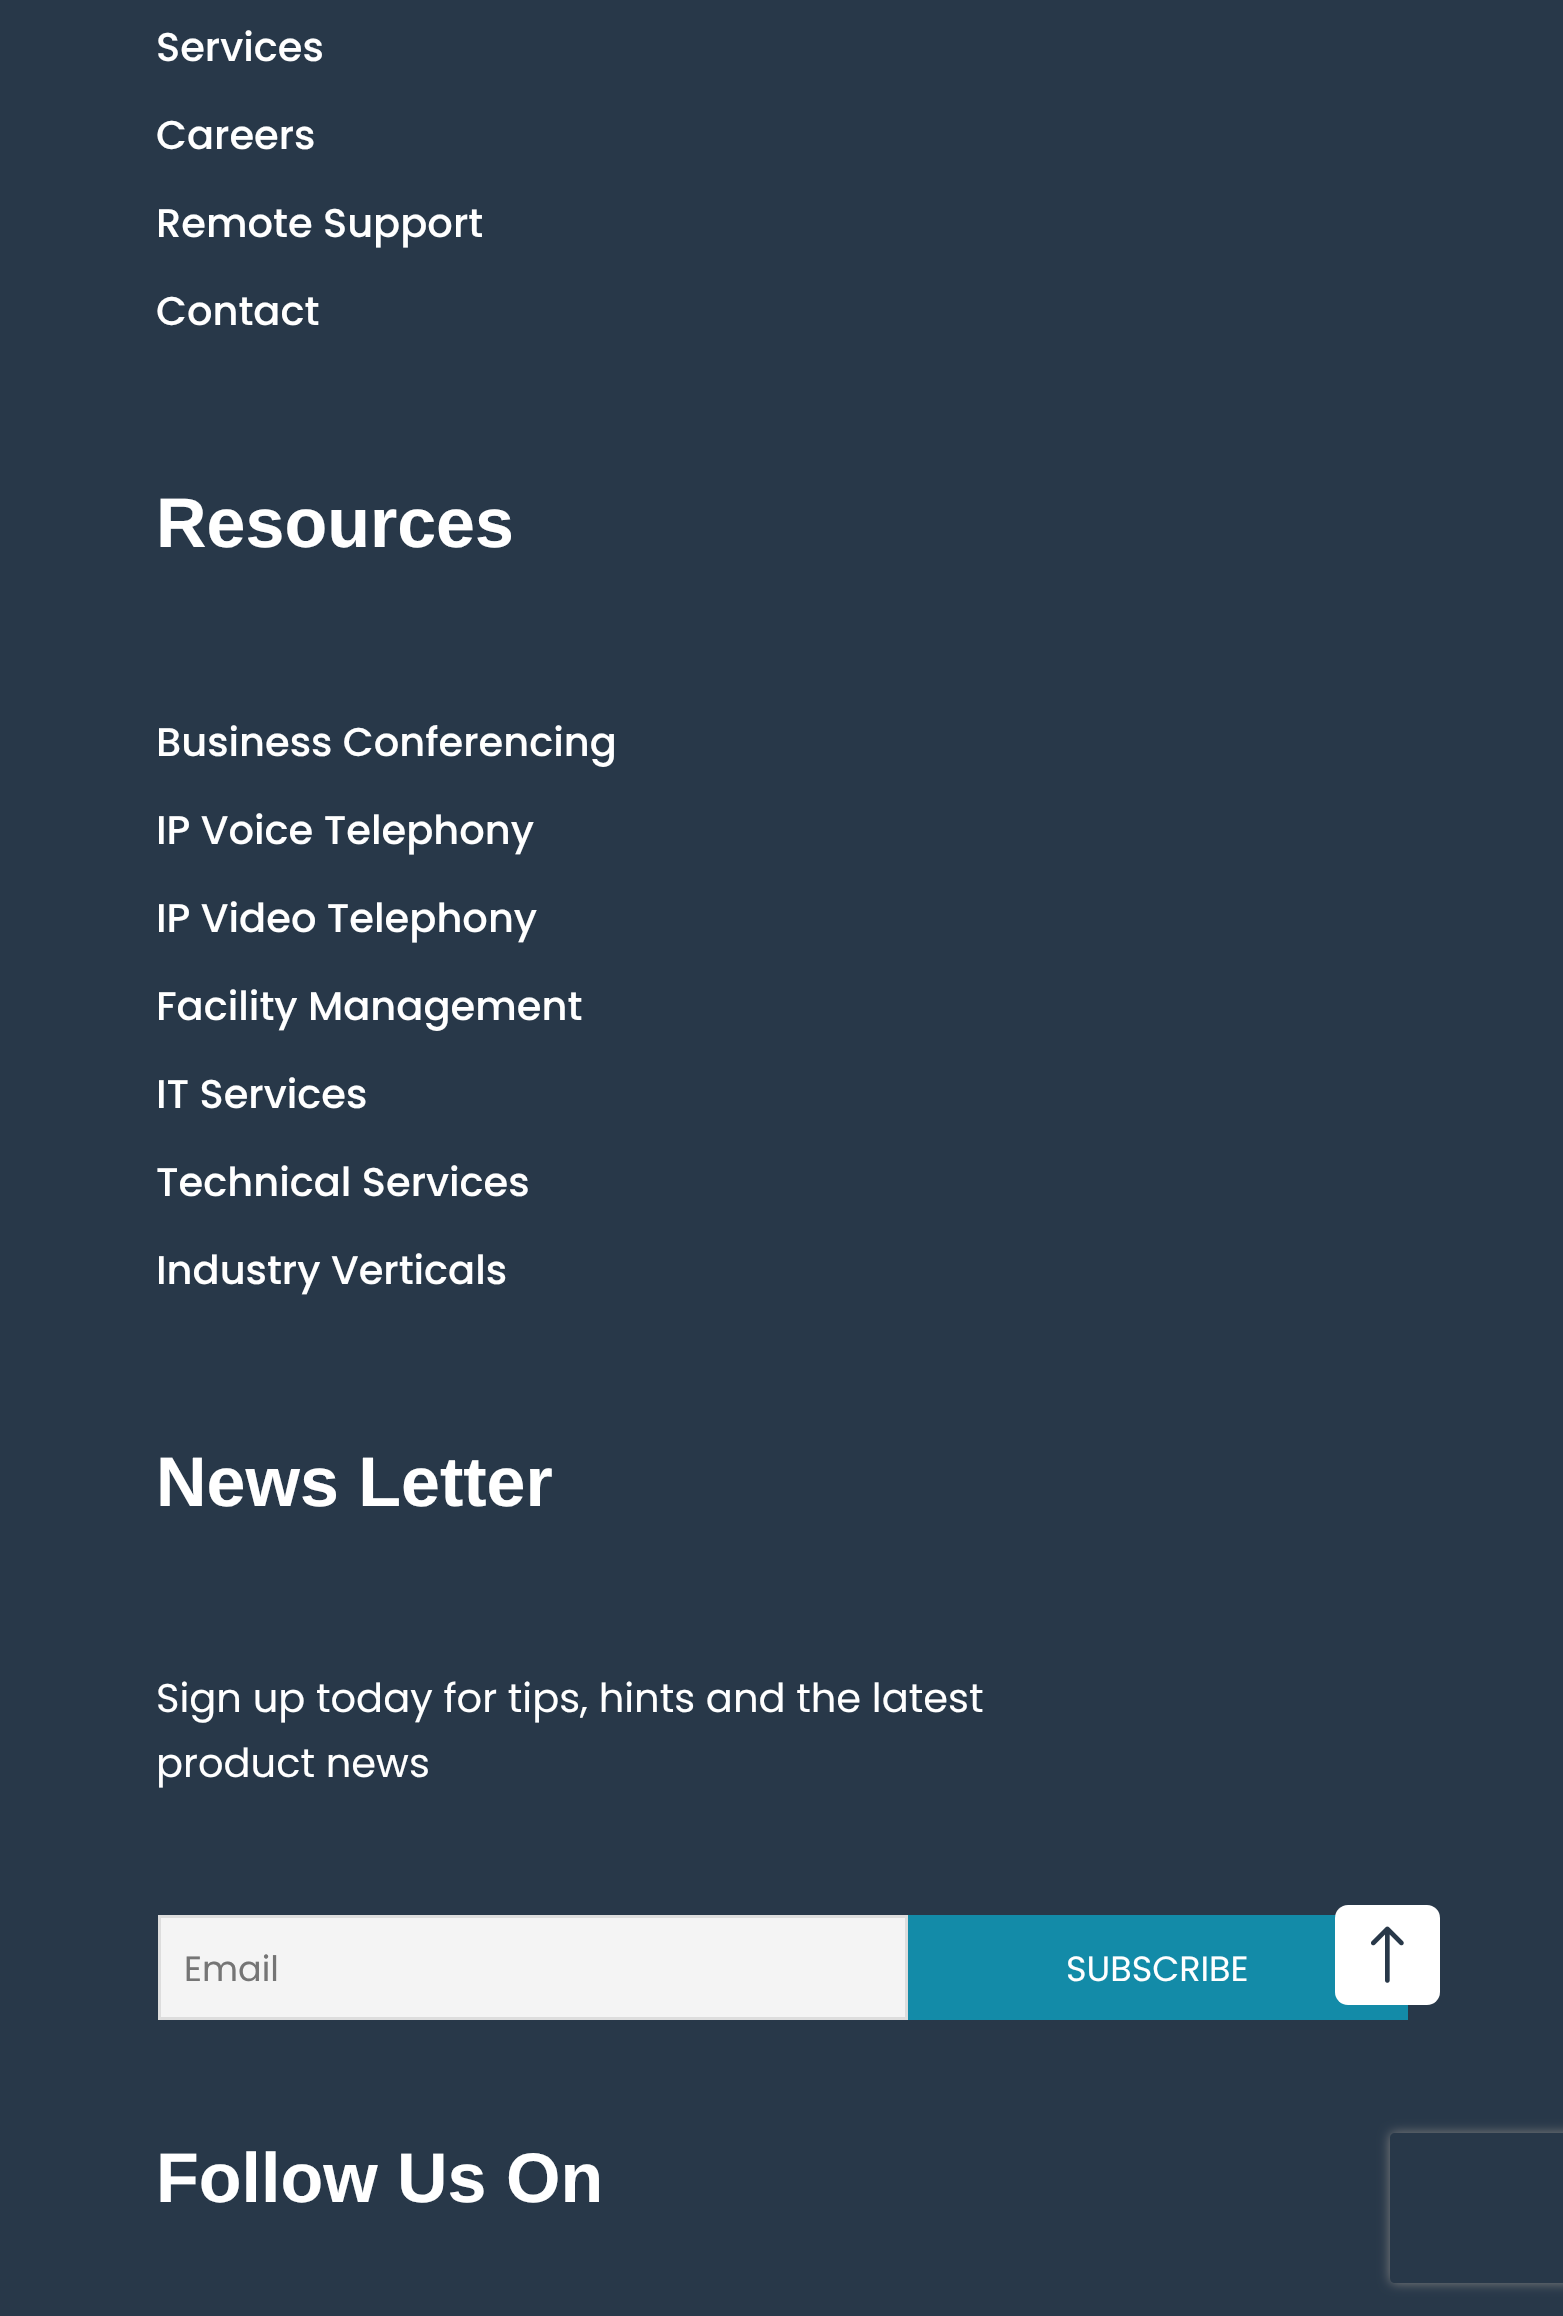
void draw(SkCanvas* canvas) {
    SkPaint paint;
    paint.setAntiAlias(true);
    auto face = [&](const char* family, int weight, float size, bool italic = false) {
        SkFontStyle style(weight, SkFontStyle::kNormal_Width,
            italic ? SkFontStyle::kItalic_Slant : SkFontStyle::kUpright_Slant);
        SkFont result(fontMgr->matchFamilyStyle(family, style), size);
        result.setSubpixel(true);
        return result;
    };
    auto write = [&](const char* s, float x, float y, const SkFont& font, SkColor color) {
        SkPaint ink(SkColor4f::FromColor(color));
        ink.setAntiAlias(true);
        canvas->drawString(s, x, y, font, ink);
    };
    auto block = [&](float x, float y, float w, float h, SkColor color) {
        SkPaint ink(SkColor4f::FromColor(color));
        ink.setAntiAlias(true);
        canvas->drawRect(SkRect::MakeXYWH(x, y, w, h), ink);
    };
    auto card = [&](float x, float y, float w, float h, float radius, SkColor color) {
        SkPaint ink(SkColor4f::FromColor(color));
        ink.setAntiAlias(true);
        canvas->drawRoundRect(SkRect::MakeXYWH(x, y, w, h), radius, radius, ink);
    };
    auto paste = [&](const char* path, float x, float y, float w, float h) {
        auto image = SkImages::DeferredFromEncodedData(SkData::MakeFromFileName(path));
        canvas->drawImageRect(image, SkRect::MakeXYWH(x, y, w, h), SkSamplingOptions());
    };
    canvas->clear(SkColorSetRGB(40, 56, 73));
    auto kFont1 = face("Poppins", 500, 40);
    write("Services", 156, 61, kFont1, SK_ColorWHITE);
    write("Careers", 156, 149, kFont1, SK_ColorWHITE);
    write("Remote Support", 156, 237, kFont1, SK_ColorWHITE);
    write("Contact", 156, 325, kFont1, SK_ColorWHITE);
    auto kFont2 = face("Liberation Sans", 700, 70);
    write("Resources", 156, 547, kFont2, SK_ColorWHITE);
    write("Business Conferencing", 156, 756, kFont1, SK_ColorWHITE);
    write("IP Voice Telephony", 156, 844, kFont1, SK_ColorWHITE);
    write("IP Video Telephony", 156, 932, kFont1, SK_ColorWHITE);
    write("Facility Management", 156, 1020, kFont1, SK_ColorWHITE);
    write("IT Services", 156, 1108, kFont1, SK_ColorWHITE);
    write("Technical Services", 156, 1196, kFont1, SK_ColorWHITE);
    write("Industry Verticals", 156, 1284, kFont1, SK_ColorWHITE);
    write("News Letter", 156, 1506, kFont2, SK_ColorWHITE);
    auto kFont3 = face("Poppins", 400, 40);
    write("Sign up today for tips, hints and the latest", 156, 1712, kFont3, SK_ColorWHITE);
    write("product news", 156, 1777, kFont3, SK_ColorWHITE);
    paint.setColor(SkColorSetRGB(244, 244, 244));
    canvas->drawRect(SkRect::MakeXYWH(159.5f, 1916.5f, 747, 102), paint);
    paint.setStyle(SkPaint::kStroke_Style);
    paint.setStrokeWidth(3);
    paint.setColor(SkColorSetRGB(221, 221, 221));
    canvas->drawRect(SkRect::MakeXYWH(159.5f, 1916.5f, 747, 102), paint);
    auto kFont4 = face("Poppins", 400, 35);
    write("Email", 184, 1981, kFont4, SkColorSetRGB(117, 117, 117));
    block(908, 1915, 500, 105, SkColorSetRGB(19, 139, 168));
    write("SUBSCRIBE", 1066, 1981, kFont4, SK_ColorWHITE);
    write("Follow Us On", 156, 2202, kFont2, SK_ColorWHITE);
    card(1335, 1905, 105, 100, 13, SK_ColorWHITE);
    paste("pic1.png", 1371, 1926, 33, 57);
    canvas->save();
    canvas->clipPath(SkPathBuilder(SkPathFillType::kEvenOdd).moveTo(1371, 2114).lineTo(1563, 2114).lineTo(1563, 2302).lineTo(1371, 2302).close().moveTo(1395, 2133).lineTo(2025, 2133).cubicTo(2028, 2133, 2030, 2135, 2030, 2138).lineTo(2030, 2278).cubicTo(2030, 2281, 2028, 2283, 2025, 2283).lineTo(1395, 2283).cubicTo(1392, 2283, 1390, 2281, 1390, 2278).lineTo(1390, 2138).cubicTo(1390, 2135, 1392, 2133, 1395, 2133).close().detach(), true);
    paint.setStyle(SkPaint::kFill_Style);
    paint.setColor(SkColorSetRGB(128, 128, 128));
    paint.setMaskFilter(SkMaskFilter::MakeBlur(kNormal_SkBlurStyle, 6));
    canvas->drawRoundRect(SkRect::MakeXYWH(1390, 2133, 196, 150), 5, 5, paint);
    paint.setMaskFilter(nullptr);
    canvas->restore();
}
